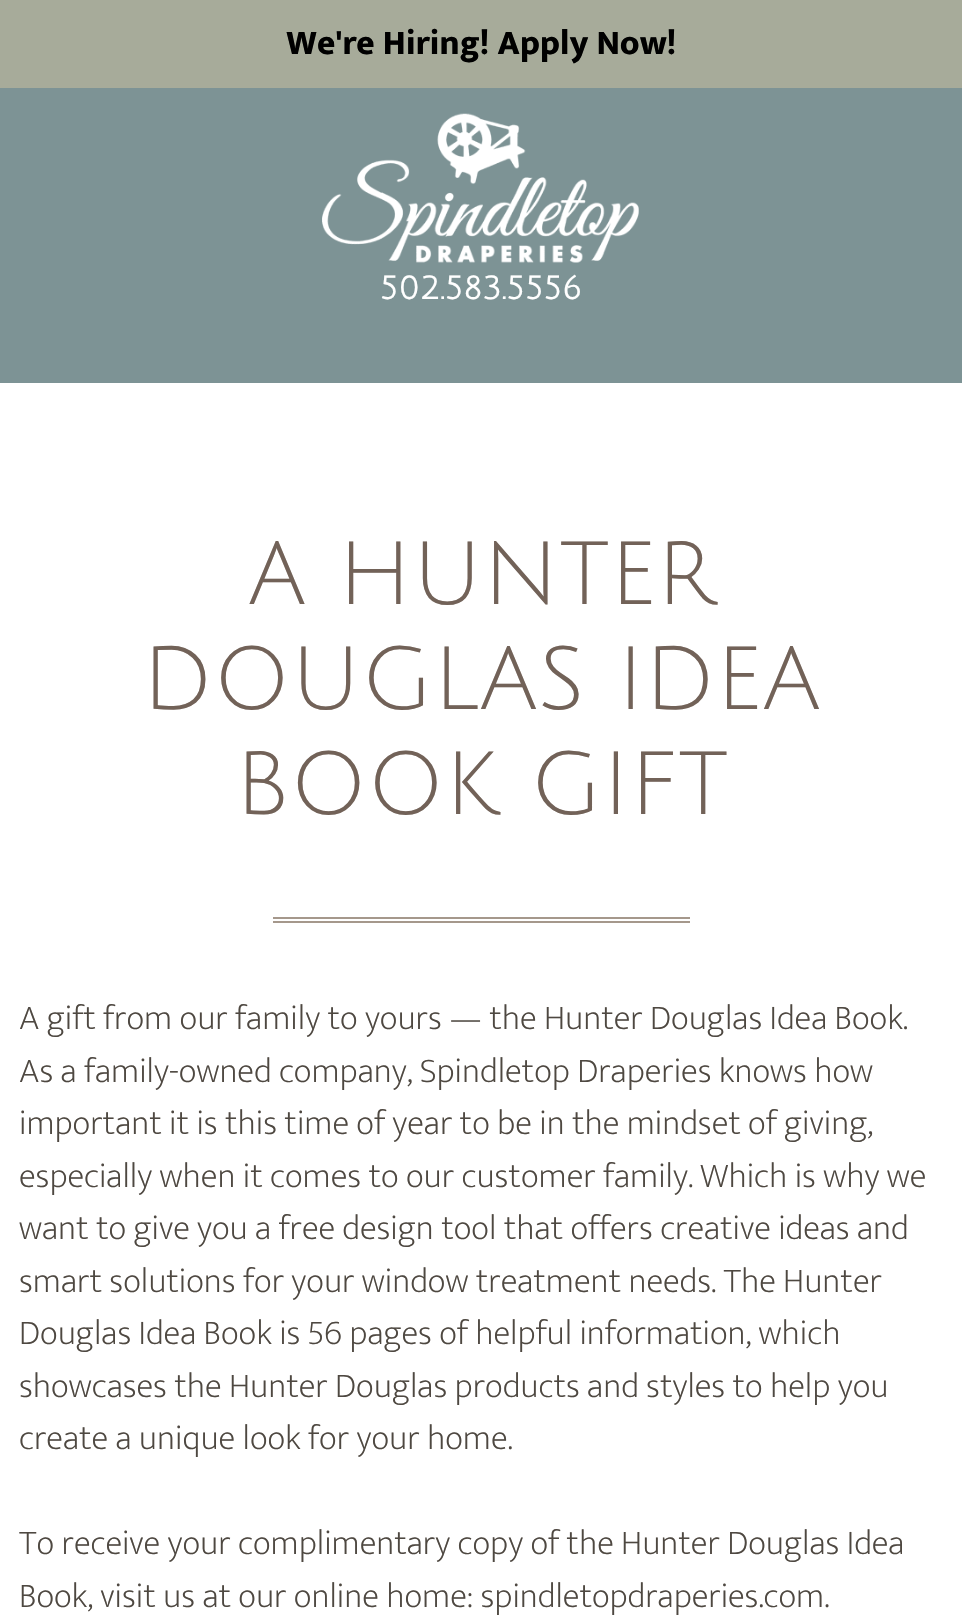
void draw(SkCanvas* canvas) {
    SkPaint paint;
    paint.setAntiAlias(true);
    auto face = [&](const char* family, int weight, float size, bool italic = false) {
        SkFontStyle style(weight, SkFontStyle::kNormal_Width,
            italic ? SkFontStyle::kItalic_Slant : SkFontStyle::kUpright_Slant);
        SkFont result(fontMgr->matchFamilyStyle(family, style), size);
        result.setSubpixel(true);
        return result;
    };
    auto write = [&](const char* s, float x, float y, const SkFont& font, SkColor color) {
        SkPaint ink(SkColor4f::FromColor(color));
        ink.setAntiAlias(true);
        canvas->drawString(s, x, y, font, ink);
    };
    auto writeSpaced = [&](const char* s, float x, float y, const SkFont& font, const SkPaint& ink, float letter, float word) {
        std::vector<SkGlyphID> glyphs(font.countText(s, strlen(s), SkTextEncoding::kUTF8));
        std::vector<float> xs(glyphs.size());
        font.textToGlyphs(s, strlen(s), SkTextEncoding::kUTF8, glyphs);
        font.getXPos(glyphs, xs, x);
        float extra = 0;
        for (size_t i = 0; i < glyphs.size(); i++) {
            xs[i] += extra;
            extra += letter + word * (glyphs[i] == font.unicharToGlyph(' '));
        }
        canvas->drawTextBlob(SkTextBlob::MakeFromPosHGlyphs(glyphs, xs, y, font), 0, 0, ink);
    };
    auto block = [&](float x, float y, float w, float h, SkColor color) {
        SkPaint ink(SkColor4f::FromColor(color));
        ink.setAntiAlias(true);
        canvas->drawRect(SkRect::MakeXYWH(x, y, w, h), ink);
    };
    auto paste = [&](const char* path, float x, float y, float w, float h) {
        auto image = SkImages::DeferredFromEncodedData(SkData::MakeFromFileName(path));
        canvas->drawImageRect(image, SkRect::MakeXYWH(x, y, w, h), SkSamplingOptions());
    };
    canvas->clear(SK_ColorWHITE);
    block(0, 0, 962, 88, SkColorSetRGB(167, 171, 154));
    auto kFont1 = face("Ek Mukta", 800, 35);
    write("We're Hiring! Apply Now!", 286, 54, kFont1, SK_ColorBLACK);
    block(0, 88, 962, 295, SkColorSetRGB(125, 147, 149));
    paste("pic1.png", 322, 113, 317, 150);
    auto kFont2 = face("Julius Sans One", 700, 31.5f);
    paint.setColor(SK_ColorWHITE);
    writeSpaced("502.583.5556", 380, 299, kFont2, paint, 0.9f, 0);
    auto kFont3 = face("Julius Sans One", 400, 87.5f);
    write("A HUNTER", 248, 604, kFont3, SkColorSetRGB(114, 98, 88));
    write("DOUGLAS IDEA", 142, 709, kFont3, SkColorSetRGB(114, 98, 88));
    write("BOOK GIFT", 235, 814, kFont3, SkColorSetRGB(114, 98, 88));
    block(273, 917, 417, 2, SkColorSetRGB(165, 152, 140));
    block(273, 921, 417, 2, SkColorSetRGB(165, 152, 140));
    auto kFont4 = face("Ek Mukta", 200, 35);
    write("A gift from our family to yours — the Hunter Douglas Idea Book.", 19, 1029, kFont4, SkColorSetRGB(78, 72, 65));
    write("As a family-owned company, Spindletop Draperies knows how", 19, 1082, kFont4, SkColorSetRGB(78, 72, 65));
    write("important it is this time of year to be in the mindset of giving,", 19, 1134, kFont4, SkColorSetRGB(78, 72, 65));
    write("especially when it comes to our customer family. Which is why we", 19, 1187, kFont4, SkColorSetRGB(78, 72, 65));
    write("want to give you a free design tool that offers creative ideas and", 19, 1239, kFont4, SkColorSetRGB(78, 72, 65));
    write("smart solutions for your window treatment needs. The Hunter", 19, 1292, kFont4, SkColorSetRGB(78, 72, 65));
    write("Douglas Idea Book is 56 pages of helpful information, which", 19, 1344, kFont4, SkColorSetRGB(78, 72, 65));
    write("showcases the Hunter Douglas products and styles to help you", 19, 1397, kFont4, SkColorSetRGB(78, 72, 65));
    write("create a unique look for your home.", 19, 1449, kFont4, SkColorSetRGB(78, 72, 65));
    write("To receive your complimentary copy of the Hunter Douglas Idea", 19, 1554, kFont4, SkColorSetRGB(78, 72, 65));
    write("Book, visit us at our online home: spindletopdraperies.com.", 19, 1607, kFont4, SkColorSetRGB(78, 72, 65));
}
